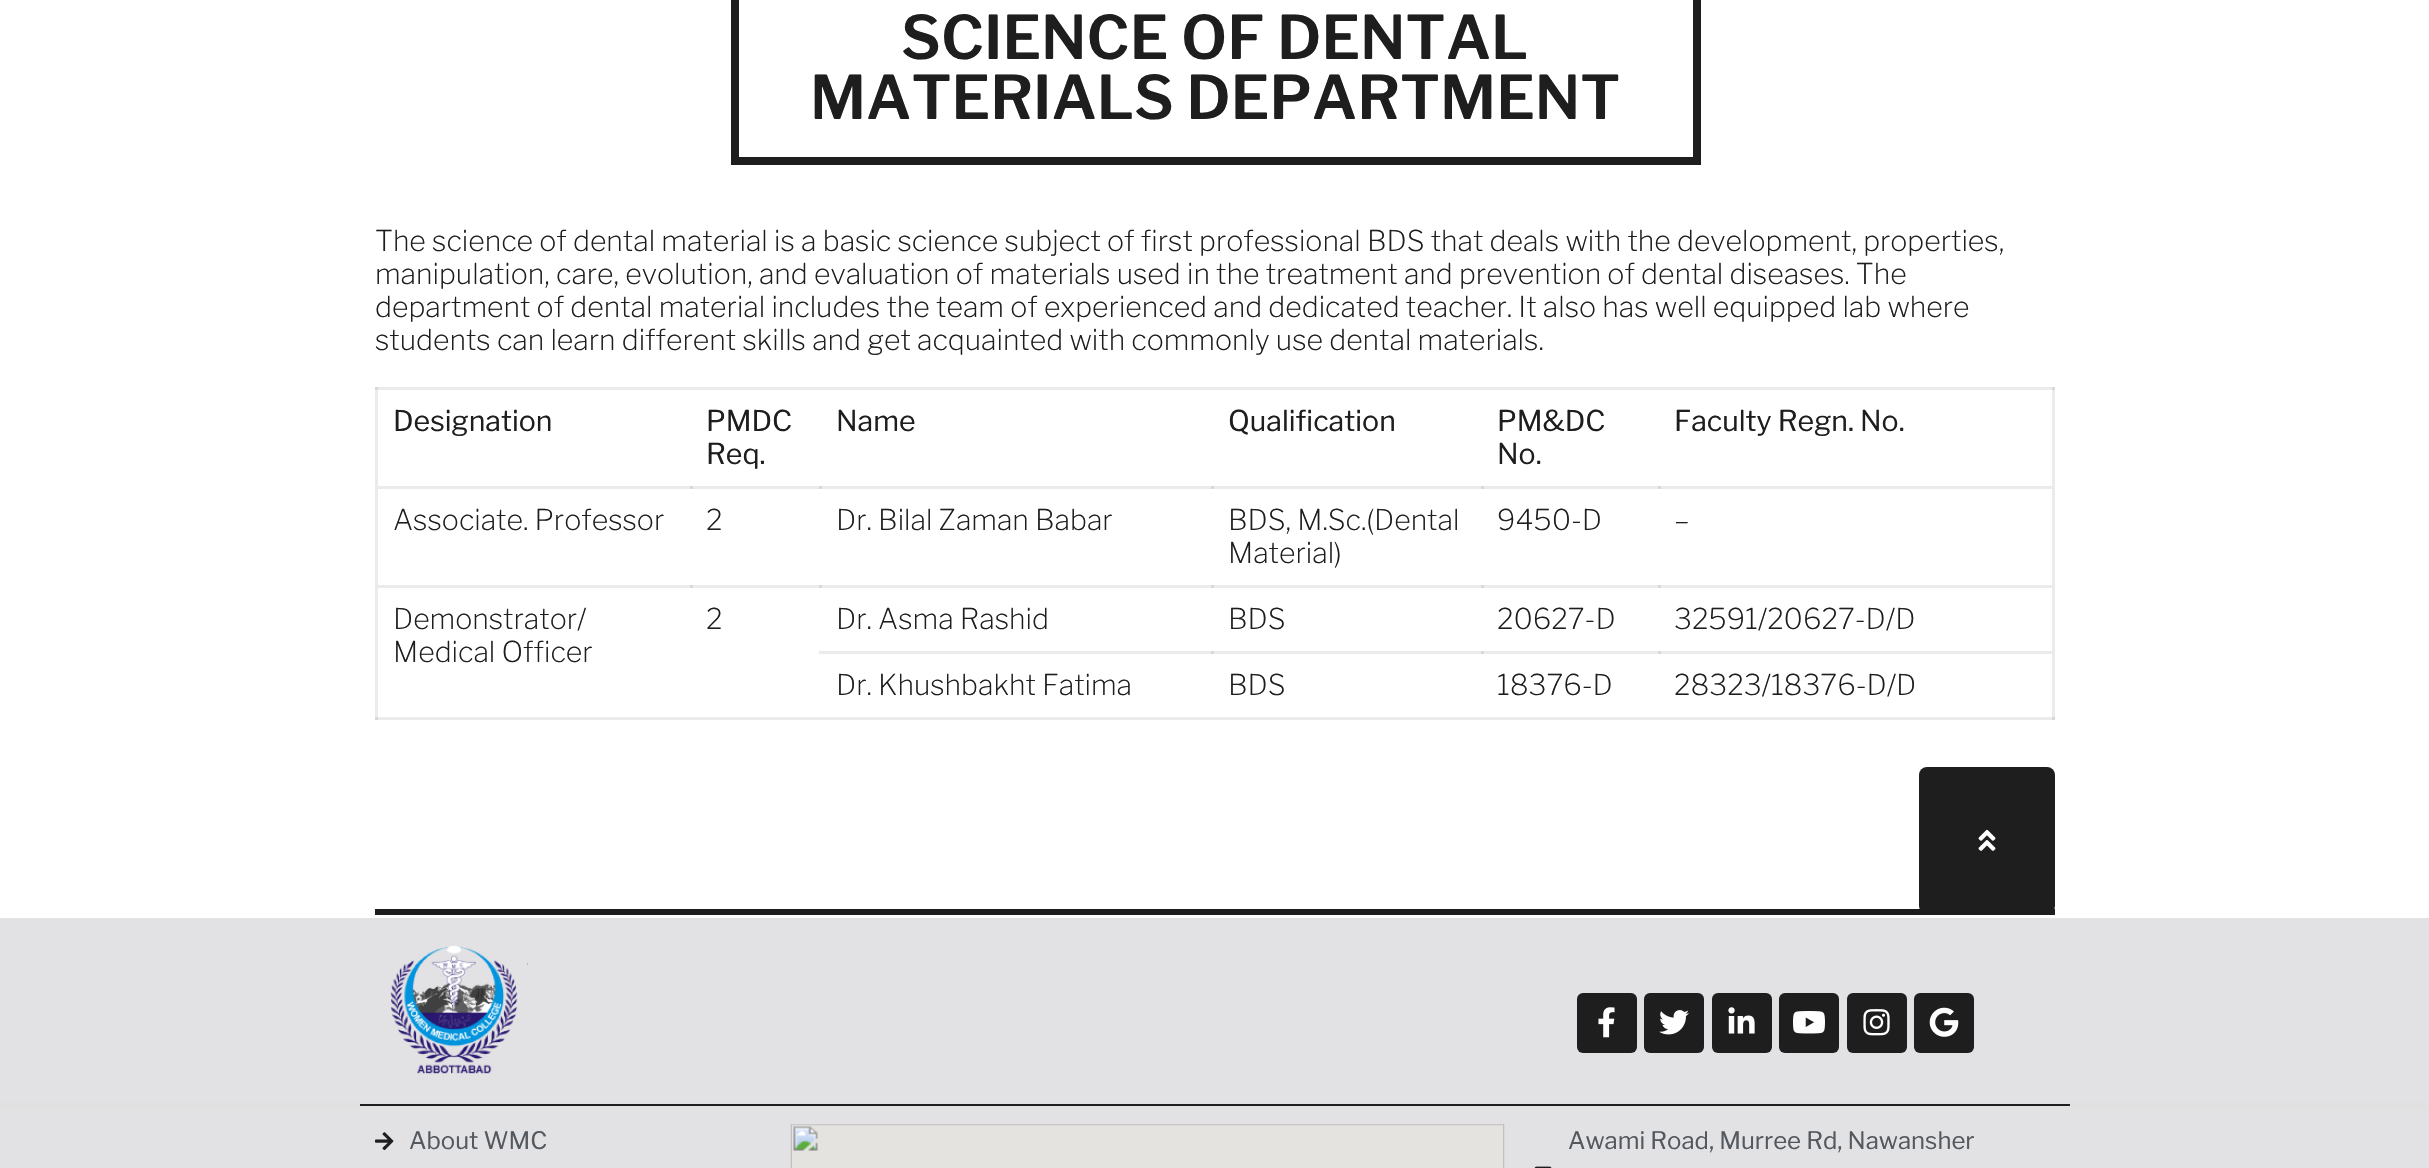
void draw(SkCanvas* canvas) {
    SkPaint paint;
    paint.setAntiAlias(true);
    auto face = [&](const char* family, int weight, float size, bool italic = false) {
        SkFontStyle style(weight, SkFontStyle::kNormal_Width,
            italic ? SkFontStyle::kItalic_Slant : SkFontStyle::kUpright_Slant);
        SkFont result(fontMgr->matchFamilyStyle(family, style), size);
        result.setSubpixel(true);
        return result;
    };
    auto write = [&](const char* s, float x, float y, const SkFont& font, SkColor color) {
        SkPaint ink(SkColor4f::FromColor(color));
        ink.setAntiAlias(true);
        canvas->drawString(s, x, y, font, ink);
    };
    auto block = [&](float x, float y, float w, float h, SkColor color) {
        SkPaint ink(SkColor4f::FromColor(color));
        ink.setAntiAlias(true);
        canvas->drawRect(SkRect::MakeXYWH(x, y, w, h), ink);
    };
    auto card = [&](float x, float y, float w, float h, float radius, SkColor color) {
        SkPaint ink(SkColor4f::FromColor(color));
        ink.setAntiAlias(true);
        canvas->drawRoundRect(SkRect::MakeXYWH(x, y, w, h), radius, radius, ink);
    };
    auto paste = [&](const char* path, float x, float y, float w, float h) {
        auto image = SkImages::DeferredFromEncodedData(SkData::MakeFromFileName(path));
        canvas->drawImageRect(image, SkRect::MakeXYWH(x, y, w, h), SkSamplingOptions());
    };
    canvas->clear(SK_ColorWHITE);
    block(378, 486, 1674, 3, SkColorSetRGB(235, 235, 235));
    block(690, 486, 3, 3, SkColorSetRGB(216, 216, 216));
    block(819, 486, 3, 3, SkColorSetRGB(216, 216, 216));
    block(1211, 486, 3, 3, SkColorSetRGB(216, 216, 216));
    block(1481, 486, 3, 3, SkColorSetRGB(216, 216, 216));
    block(378, 585, 1674, 3, SkColorSetRGB(235, 235, 235));
    block(690, 585, 3, 3, SkColorSetRGB(216, 216, 216));
    block(819, 585, 3, 3, SkColorSetRGB(216, 216, 216));
    block(1211, 585, 3, 3, SkColorSetRGB(216, 216, 216));
    block(1481, 585, 3, 3, SkColorSetRGB(216, 216, 216));
    block(819, 651, 1233, 3, SkColorSetRGB(235, 235, 235));
    block(1211, 651, 3, 3, SkColorSetRGB(216, 216, 216));
    block(1481, 651, 3, 3, SkColorSetRGB(216, 216, 216));
    block(375, 387, 3, 333, SkColorSetRGB(235, 235, 235));
    block(375, 717, 1680, 3, SkColorSetRGB(235, 235, 235));
    block(375, 717, 3, 3, SkColorSetRGB(216, 216, 216));
    block(2052, 387, 3, 333, SkColorSetRGB(235, 235, 235));
    block(2052, 717, 3, 3, SkColorSetRGB(216, 216, 216));
    paint.setStyle(SkPaint::kStroke_Style);
    paint.setStrokeWidth(8);
    paint.setColor(SkColorSetRGB(30, 30, 30));
    canvas->drawRect(SkRect::MakeXYWH(735, -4, 962, 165), paint);
    auto kFont1 = face("Libre Franklin", 600, 60);
    write("SCIENCE OF DENTAL", 901, 59, kFont1, SkColorSetRGB(30, 30, 30));
    write("MATERIALS DEPARTMENT", 810, 119, kFont1, SkColorSetRGB(30, 30, 30));
    auto kFont2 = face("Libre Franklin", 200, 28.5f);
    write("The science of dental material is a basic science subject of first professional BDS that deals with the development, properties,", 375, 251, kFont2, SkColorSetRGB(30, 30, 30));
    write("manipulation, care, evolution, and evaluation of materials used in the treatment and prevention of dental diseases. The", 375, 284, kFont2, SkColorSetRGB(30, 30, 30));
    write("department of dental material includes the team of experienced and dedicated teacher. It also has well equipped lab where", 375, 317, kFont2, SkColorSetRGB(30, 30, 30));
    write("students can learn different skills and get acquainted with commonly use dental materials.", 375, 350, kFont2, SkColorSetRGB(30, 30, 30));
    block(375, 387, 1680, 3, SkColorSetRGB(235, 235, 235));
    block(375, 387, 3, 3, SkColorSetRGB(216, 216, 216));
    block(2052, 387, 3, 3, SkColorSetRGB(216, 216, 216));
    auto kFont3 = face("Libre Franklin", 400, 28.5f);
    write("Designation", 393, 431, kFont3, SkColorSetRGB(30, 30, 30));
    write("PMDC", 706, 431, kFont3, SkColorSetRGB(30, 30, 30));
    write("Req.", 706, 464, kFont3, SkColorSetRGB(30, 30, 30));
    write("Name", 836, 431, kFont3, SkColorSetRGB(30, 30, 30));
    write("Qualification", 1228, 431, kFont3, SkColorSetRGB(30, 30, 30));
    write("PM&DC", 1497, 431, kFont3, SkColorSetRGB(30, 30, 30));
    write("No.", 1497, 464, kFont3, SkColorSetRGB(30, 30, 30));
    block(1658, 486, 3, 3, SkColorSetRGB(216, 216, 216));
    write("Faculty Regn. No.", 1674, 431, kFont3, SkColorSetRGB(30, 30, 30));
    write("Associate. Professor", 393, 530, kFont2, SkColorSetRGB(30, 30, 30));
    write("2", 706, 530, kFont2, SkColorSetRGB(30, 30, 30));
    write("Dr. Bilal Zaman Babar", 836, 530, kFont2, SkColorSetRGB(30, 30, 30));
    write("BDS, M.Sc.(Dental", 1228, 530, kFont2, SkColorSetRGB(30, 30, 30));
    write("Material)", 1228, 563, kFont2, SkColorSetRGB(30, 30, 30));
    write("9450-D", 1497, 530, kFont2, SkColorSetRGB(30, 30, 30));
    block(1658, 585, 3, 3, SkColorSetRGB(216, 216, 216));
    write("–", 1674, 530, kFont2, SkColorSetRGB(30, 30, 30));
    write("Demonstrator/", 393, 629, kFont2, SkColorSetRGB(30, 30, 30));
    write("Medical Officer", 393, 662, kFont2, SkColorSetRGB(30, 30, 30));
    write("2", 706, 629, kFont2, SkColorSetRGB(30, 30, 30));
    write("Dr. Asma Rashid", 836, 629, kFont2, SkColorSetRGB(30, 30, 30));
    write("BDS", 1228, 629, kFont2, SkColorSetRGB(30, 30, 30));
    write("20627-D", 1497, 629, kFont2, SkColorSetRGB(30, 30, 30));
    block(1658, 651, 3, 3, SkColorSetRGB(216, 216, 216));
    write("32591/20627-D/D", 1674, 629, kFont2, SkColorSetRGB(30, 30, 30));
    write("Dr. Khushbakht Fatima", 836, 695, kFont2, SkColorSetRGB(30, 30, 30));
    write("BDS", 1228, 695, kFont2, SkColorSetRGB(30, 30, 30));
    write("18376-D", 1497, 695, kFont2, SkColorSetRGB(30, 30, 30));
    write("28323/18376-D/D", 1674, 695, kFont2, SkColorSetRGB(30, 30, 30));
    card(1919, 767, 136, 147, 8, SkColorSetRGB(30, 30, 30));
    paste("pic1.png", 1978, 829, 18, 22);
    block(375, 909, 1680, 6, SkColorSetRGB(30, 30, 30));
    block(0, 918, 2429, 183, SkColorSetRGB(226, 225, 227));
    paste("pic2.png", 390, 945, 138, 129);
    card(1577, 993, 60, 60, 6, SkColorSetRGB(30, 30, 30));
    paste("pic3.png", 1598, 1007, 17, 31);
    card(1644, 993, 60, 60, 6, SkColorSetRGB(30, 30, 30));
    paste("pic4.png", 1659, 1010, 30, 25);
    card(1712, 993, 60, 60, 6, SkColorSetRGB(30, 30, 30));
    paste("pic5.png", 1728, 1007, 27, 27);
    card(1779, 993, 60, 60, 6, SkColorSetRGB(30, 30, 30));
    paste("pic6.png", 1793, 1011, 32, 23);
    card(1847, 993, 60, 60, 6, SkColorSetRGB(30, 30, 30));
    paste("pic7.png", 1863, 1009, 27, 27);
    card(1914, 993, 60, 60, 6, SkColorSetRGB(30, 30, 30));
    paste("pic8.png", 1929, 1007, 30, 30);
    block(0, 1101, 2429, 8, SkColorSetRGB(225, 225, 226));
    block(360, 1104, 1710, 2, SkColorSetRGB(30, 30, 30));
    block(0, 1109, 2429, 59, SkColorSetRGB(226, 225, 227));
    paste("pic9.png", 375, 1132, 19, 19);
    auto kFont4 = face("Libre Franklin", 400, 24);
    write("About WMC", 409, 1149, kFont4, SkColorSetRGB(84, 89, 95));
    paste("pic10.png", 790, 1124, 715, 44);
    write("Awami Road, Murree Rd, Nawansher", 1568, 1149, kFont4, SkColorSetRGB(84, 89, 95));
    paste("pic11.png", 1534, 1166, 18, 2);
}
